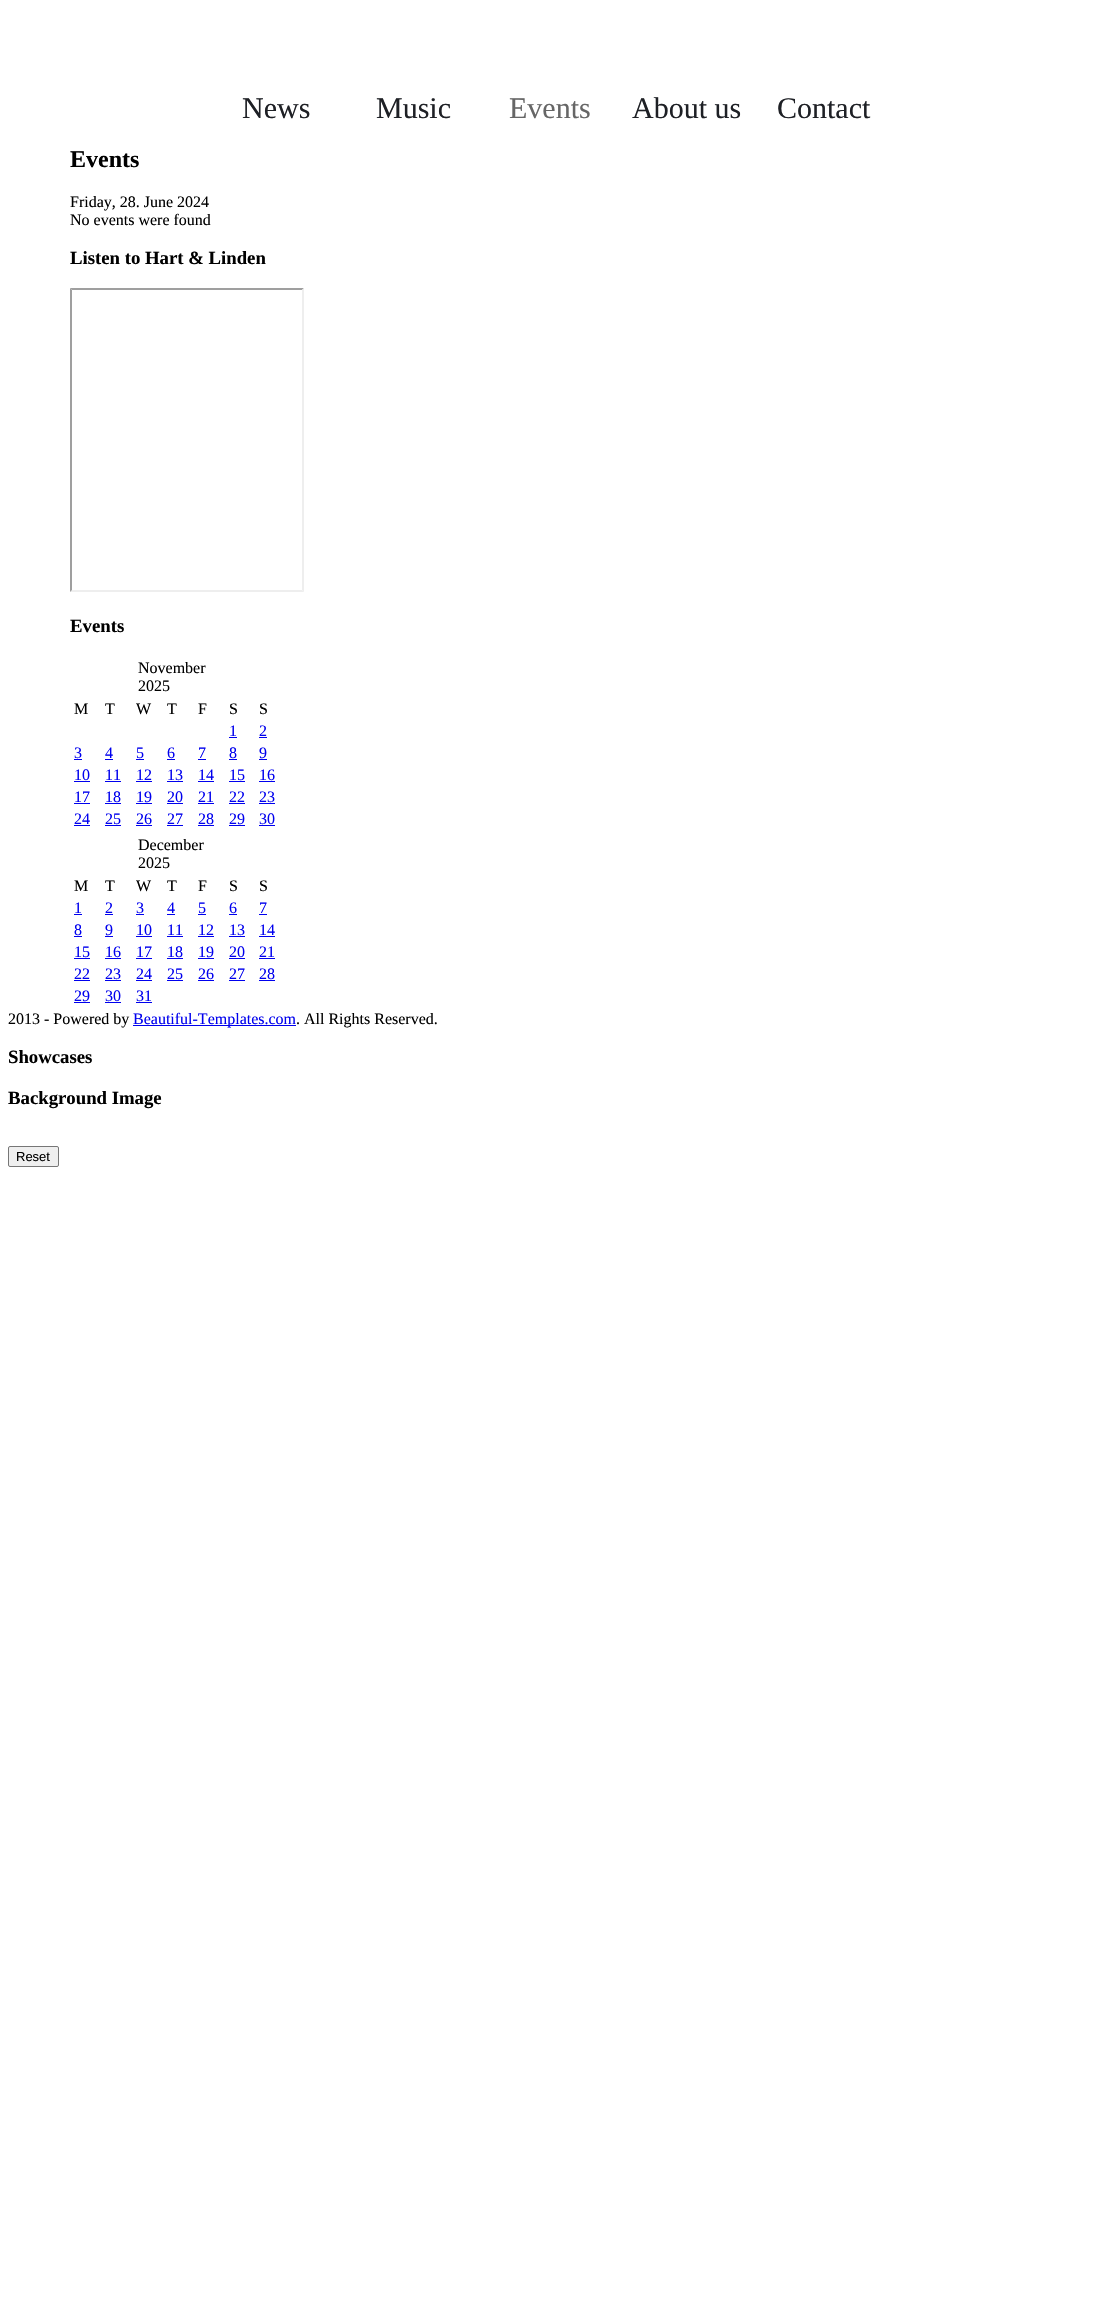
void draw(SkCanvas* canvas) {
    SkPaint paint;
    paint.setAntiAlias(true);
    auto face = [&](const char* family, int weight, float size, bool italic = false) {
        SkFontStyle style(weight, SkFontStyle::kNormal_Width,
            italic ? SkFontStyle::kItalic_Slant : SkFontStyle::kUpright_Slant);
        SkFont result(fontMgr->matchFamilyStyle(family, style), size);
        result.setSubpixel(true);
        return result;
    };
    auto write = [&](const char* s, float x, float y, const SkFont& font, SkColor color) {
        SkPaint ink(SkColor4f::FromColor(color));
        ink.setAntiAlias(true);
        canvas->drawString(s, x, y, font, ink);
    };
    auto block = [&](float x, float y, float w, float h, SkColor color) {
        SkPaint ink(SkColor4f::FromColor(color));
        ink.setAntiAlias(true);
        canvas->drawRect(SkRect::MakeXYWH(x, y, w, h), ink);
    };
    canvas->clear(SK_ColorWHITE);
    auto kFont1 = face("Liberation Serif", 400, 30);
    write("News", 242, 118, kFont1, SkColorSetRGB(30, 32, 37));
    write("Music", 376, 118, kFont1, SkColorSetRGB(30, 32, 37));
    write("Events", 509, 118, kFont1, SkColorSetRGB(102, 102, 102));
    write("About us", 632, 118, kFont1, SkColorSetRGB(30, 32, 37));
    write("Contact", 777, 118, kFont1, SkColorSetRGB(30, 32, 37));
    auto kFont2 = face("Liberation Serif", 700, 24);
    write("Events", 70, 167, kFont2, SK_ColorBLACK);
    auto kFont3 = face("Liberation Serif", 400, 16);
    write("Friday, 28. June 2024", 70, 207, kFont3, SK_ColorBLACK);
    write("No events were found", 70, 225, kFont3, SK_ColorBLACK);
    auto kFont4 = face("Liberation Serif", 700, 18.75f);
    write("Listen to Hart & Linden", 70, 264, kFont4, SK_ColorBLACK);
    paint.setColor(SkColorSetRGB(159, 159, 159));
    canvas->drawPath(SkPathBuilder().moveTo(70, 288).lineTo(304, 288).lineTo(302, 290).lineTo(72, 290).close().detach(), paint);
    paint.setColor(SkColorSetRGB(238, 238, 238));
    canvas->drawPath(SkPathBuilder().moveTo(304, 288).lineTo(304, 592).lineTo(302, 590).lineTo(302, 290).close().detach(), paint);
    canvas->drawPath(SkPathBuilder().moveTo(304, 592).lineTo(70, 592).lineTo(72, 590).lineTo(302, 590).close().detach(), paint);
    paint.setColor(SkColorSetRGB(159, 159, 159));
    canvas->drawPath(SkPathBuilder().moveTo(70, 592).lineTo(70, 288).lineTo(72, 290).lineTo(72, 590).close().detach(), paint);
    write("Events", 70, 632, kFont4, SK_ColorBLACK);
    write("November", 138, 673, kFont3, SK_ColorBLACK);
    write("2025", 138, 691, kFont3, SK_ColorBLACK);
    write("M", 74, 714, kFont3, SK_ColorBLACK);
    write("T", 105, 714, kFont3, SK_ColorBLACK);
    write("W", 136, 714, kFont3, SK_ColorBLACK);
    write("T", 167, 714, kFont3, SK_ColorBLACK);
    write("F", 198, 714, kFont3, SK_ColorBLACK);
    write("S", 229, 714, kFont3, SK_ColorBLACK);
    write("S", 259, 714, kFont3, SK_ColorBLACK);
    write("1", 229, 736, kFont3, SkColorSetRGB(0, 0, 238));
    block(229, 737, 8, 1, SkColorSetRGB(0, 0, 238));
    write("2", 259, 736, kFont3, SkColorSetRGB(0, 0, 238));
    block(259, 737, 8, 1, SkColorSetRGB(0, 0, 238));
    write("3", 74, 758, kFont3, SkColorSetRGB(0, 0, 238));
    block(74, 759, 8, 1, SkColorSetRGB(0, 0, 238));
    write("4", 105, 758, kFont3, SkColorSetRGB(0, 0, 238));
    block(105, 759, 8, 1, SkColorSetRGB(0, 0, 238));
    write("5", 136, 758, kFont3, SkColorSetRGB(0, 0, 238));
    block(136, 759, 8, 1, SkColorSetRGB(0, 0, 238));
    write("6", 167, 758, kFont3, SkColorSetRGB(0, 0, 238));
    block(167, 759, 8, 1, SkColorSetRGB(0, 0, 238));
    write("7", 198, 758, kFont3, SkColorSetRGB(0, 0, 238));
    block(198, 759, 8, 1, SkColorSetRGB(0, 0, 238));
    write("8", 229, 758, kFont3, SkColorSetRGB(0, 0, 238));
    block(229, 759, 8, 1, SkColorSetRGB(0, 0, 238));
    write("9", 259, 758, kFont3, SkColorSetRGB(0, 0, 238));
    block(259, 759, 8, 1, SkColorSetRGB(0, 0, 238));
    write("10", 74, 780, kFont3, SkColorSetRGB(0, 0, 238));
    block(74, 781, 16, 1, SkColorSetRGB(0, 0, 238));
    write("11", 105, 780, kFont3, SkColorSetRGB(0, 0, 238));
    block(105, 781, 16, 1, SkColorSetRGB(0, 0, 238));
    write("12", 136, 780, kFont3, SkColorSetRGB(0, 0, 238));
    block(136, 781, 16, 1, SkColorSetRGB(0, 0, 238));
    write("13", 167, 780, kFont3, SkColorSetRGB(0, 0, 238));
    block(167, 781, 16, 1, SkColorSetRGB(0, 0, 238));
    write("14", 198, 780, kFont3, SkColorSetRGB(0, 0, 238));
    block(198, 781, 16, 1, SkColorSetRGB(0, 0, 238));
    write("15", 229, 780, kFont3, SkColorSetRGB(0, 0, 238));
    block(229, 781, 16, 1, SkColorSetRGB(0, 0, 238));
    write("16", 259, 780, kFont3, SkColorSetRGB(0, 0, 238));
    block(259, 781, 16, 1, SkColorSetRGB(0, 0, 238));
    write("17", 74, 802, kFont3, SkColorSetRGB(0, 0, 238));
    block(74, 803, 16, 1, SkColorSetRGB(0, 0, 238));
    write("18", 105, 802, kFont3, SkColorSetRGB(0, 0, 238));
    block(105, 803, 16, 1, SkColorSetRGB(0, 0, 238));
    write("19", 136, 802, kFont3, SkColorSetRGB(0, 0, 238));
    block(136, 803, 16, 1, SkColorSetRGB(0, 0, 238));
    write("20", 167, 802, kFont3, SkColorSetRGB(0, 0, 238));
    block(167, 803, 16, 1, SkColorSetRGB(0, 0, 238));
    write("21", 198, 802, kFont3, SkColorSetRGB(0, 0, 238));
    block(198, 803, 16, 1, SkColorSetRGB(0, 0, 238));
    write("22", 229, 802, kFont3, SkColorSetRGB(0, 0, 238));
    block(229, 803, 16, 1, SkColorSetRGB(0, 0, 238));
    write("23", 259, 802, kFont3, SkColorSetRGB(0, 0, 238));
    block(259, 803, 16, 1, SkColorSetRGB(0, 0, 238));
    write("24", 74, 824, kFont3, SkColorSetRGB(0, 0, 238));
    block(74, 825, 16, 1, SkColorSetRGB(0, 0, 238));
    write("25", 105, 824, kFont3, SkColorSetRGB(0, 0, 238));
    block(105, 825, 16, 1, SkColorSetRGB(0, 0, 238));
    write("26", 136, 824, kFont3, SkColorSetRGB(0, 0, 238));
    block(136, 825, 16, 1, SkColorSetRGB(0, 0, 238));
    write("27", 167, 824, kFont3, SkColorSetRGB(0, 0, 238));
    block(167, 825, 16, 1, SkColorSetRGB(0, 0, 238));
    write("28", 198, 824, kFont3, SkColorSetRGB(0, 0, 238));
    block(198, 825, 16, 1, SkColorSetRGB(0, 0, 238));
    write("29", 229, 824, kFont3, SkColorSetRGB(0, 0, 238));
    block(229, 825, 16, 1, SkColorSetRGB(0, 0, 238));
    write("30", 259, 824, kFont3, SkColorSetRGB(0, 0, 238));
    block(259, 825, 16, 1, SkColorSetRGB(0, 0, 238));
    write("December", 138, 850, kFont3, SK_ColorBLACK);
    write("2025", 138, 868, kFont3, SK_ColorBLACK);
    write("M", 74, 891, kFont3, SK_ColorBLACK);
    write("T", 105, 891, kFont3, SK_ColorBLACK);
    write("W", 136, 891, kFont3, SK_ColorBLACK);
    write("T", 167, 891, kFont3, SK_ColorBLACK);
    write("F", 198, 891, kFont3, SK_ColorBLACK);
    write("S", 229, 891, kFont3, SK_ColorBLACK);
    write("S", 259, 891, kFont3, SK_ColorBLACK);
    write("1", 74, 913, kFont3, SkColorSetRGB(0, 0, 238));
    block(74, 914, 8, 1, SkColorSetRGB(0, 0, 238));
    write("2", 105, 913, kFont3, SkColorSetRGB(0, 0, 238));
    block(105, 914, 8, 1, SkColorSetRGB(0, 0, 238));
    write("3", 136, 913, kFont3, SkColorSetRGB(0, 0, 238));
    block(136, 914, 8, 1, SkColorSetRGB(0, 0, 238));
    write("4", 167, 913, kFont3, SkColorSetRGB(0, 0, 238));
    block(167, 914, 8, 1, SkColorSetRGB(0, 0, 238));
    write("5", 198, 913, kFont3, SkColorSetRGB(0, 0, 238));
    block(198, 914, 8, 1, SkColorSetRGB(0, 0, 238));
    write("6", 229, 913, kFont3, SkColorSetRGB(0, 0, 238));
    block(229, 914, 8, 1, SkColorSetRGB(0, 0, 238));
    write("7", 259, 913, kFont3, SkColorSetRGB(0, 0, 238));
    block(259, 914, 8, 1, SkColorSetRGB(0, 0, 238));
    write("8", 74, 935, kFont3, SkColorSetRGB(0, 0, 238));
    block(74, 936, 8, 1, SkColorSetRGB(0, 0, 238));
    write("9", 105, 935, kFont3, SkColorSetRGB(0, 0, 238));
    block(105, 936, 8, 1, SkColorSetRGB(0, 0, 238));
    write("10", 136, 935, kFont3, SkColorSetRGB(0, 0, 238));
    block(136, 936, 16, 1, SkColorSetRGB(0, 0, 238));
    write("11", 167, 935, kFont3, SkColorSetRGB(0, 0, 238));
    block(167, 936, 16, 1, SkColorSetRGB(0, 0, 238));
    write("12", 198, 935, kFont3, SkColorSetRGB(0, 0, 238));
    block(198, 936, 16, 1, SkColorSetRGB(0, 0, 238));
    write("13", 229, 935, kFont3, SkColorSetRGB(0, 0, 238));
    block(229, 936, 16, 1, SkColorSetRGB(0, 0, 238));
    write("14", 259, 935, kFont3, SkColorSetRGB(0, 0, 238));
    block(259, 936, 16, 1, SkColorSetRGB(0, 0, 238));
    write("15", 74, 957, kFont3, SkColorSetRGB(0, 0, 238));
    block(74, 958, 16, 1, SkColorSetRGB(0, 0, 238));
    write("16", 105, 957, kFont3, SkColorSetRGB(0, 0, 238));
    block(105, 958, 16, 1, SkColorSetRGB(0, 0, 238));
    write("17", 136, 957, kFont3, SkColorSetRGB(0, 0, 238));
    block(136, 958, 16, 1, SkColorSetRGB(0, 0, 238));
    write("18", 167, 957, kFont3, SkColorSetRGB(0, 0, 238));
    block(167, 958, 16, 1, SkColorSetRGB(0, 0, 238));
    write("19", 198, 957, kFont3, SkColorSetRGB(0, 0, 238));
    block(198, 958, 16, 1, SkColorSetRGB(0, 0, 238));
    write("20", 229, 957, kFont3, SkColorSetRGB(0, 0, 238));
    block(229, 958, 16, 1, SkColorSetRGB(0, 0, 238));
    write("21", 259, 957, kFont3, SkColorSetRGB(0, 0, 238));
    block(259, 958, 16, 1, SkColorSetRGB(0, 0, 238));
    write("22", 74, 979, kFont3, SkColorSetRGB(0, 0, 238));
    block(74, 980, 16, 1, SkColorSetRGB(0, 0, 238));
    write("23", 105, 979, kFont3, SkColorSetRGB(0, 0, 238));
    block(105, 980, 16, 1, SkColorSetRGB(0, 0, 238));
    write("24", 136, 979, kFont3, SkColorSetRGB(0, 0, 238));
    block(136, 980, 16, 1, SkColorSetRGB(0, 0, 238));
    write("25", 167, 979, kFont3, SkColorSetRGB(0, 0, 238));
    block(167, 980, 16, 1, SkColorSetRGB(0, 0, 238));
    write("26", 198, 979, kFont3, SkColorSetRGB(0, 0, 238));
    block(198, 980, 16, 1, SkColorSetRGB(0, 0, 238));
    write("27", 229, 979, kFont3, SkColorSetRGB(0, 0, 238));
    block(229, 980, 16, 1, SkColorSetRGB(0, 0, 238));
    write("28", 259, 979, kFont3, SkColorSetRGB(0, 0, 238));
    block(259, 980, 16, 1, SkColorSetRGB(0, 0, 238));
    write("29", 74, 1001, kFont3, SkColorSetRGB(0, 0, 238));
    block(74, 1002, 16, 1, SkColorSetRGB(0, 0, 238));
    write("30", 105, 1001, kFont3, SkColorSetRGB(0, 0, 238));
    block(105, 1002, 16, 1, SkColorSetRGB(0, 0, 238));
    write("31", 136, 1001, kFont3, SkColorSetRGB(0, 0, 238));
    block(136, 1002, 16, 1, SkColorSetRGB(0, 0, 238));
    write("2013 - Powered by", 8, 1024, kFont3, SK_ColorBLACK);
    block(133, 1025, 163, 1, SkColorSetRGB(0, 0, 238));
    write("Beautiful-Templates.com", 133, 1024, kFont3, SkColorSetRGB(0, 0, 238));
    write(". All Rights Reserved.", 296, 1024, kFont3, SK_ColorBLACK);
    write("Showcases", 8, 1063, kFont4, SK_ColorBLACK);
    write("Background Image", 8, 1104, kFont4, SK_ColorBLACK);
    paint.setColor(SkColorSetRGB(239, 239, 239));
    canvas->drawRoundRect(SkRect::MakeXYWH(8.5f, 1146.5f, 50, 20), 1.5f, 1.5f, paint);
    paint.setStyle(SkPaint::kStroke_Style);
    paint.setStrokeWidth(1);
    paint.setColor(SkColorSetRGB(118, 118, 118));
    canvas->drawRoundRect(SkRect::MakeXYWH(8.5f, 1146.5f, 50, 20), 1.5f, 1.5f, paint);
    auto kFont5 = face("Liberation Sans", 400, 13);
    write("Reset", 16, 1161, kFont5, SK_ColorBLACK);
}
